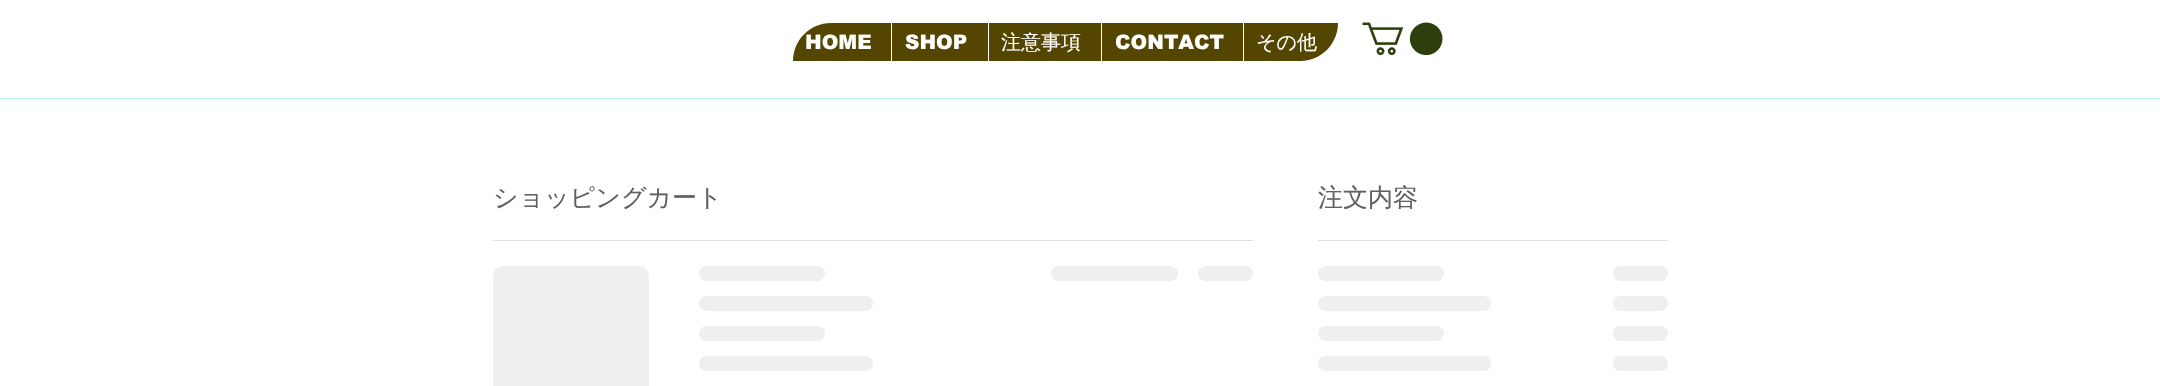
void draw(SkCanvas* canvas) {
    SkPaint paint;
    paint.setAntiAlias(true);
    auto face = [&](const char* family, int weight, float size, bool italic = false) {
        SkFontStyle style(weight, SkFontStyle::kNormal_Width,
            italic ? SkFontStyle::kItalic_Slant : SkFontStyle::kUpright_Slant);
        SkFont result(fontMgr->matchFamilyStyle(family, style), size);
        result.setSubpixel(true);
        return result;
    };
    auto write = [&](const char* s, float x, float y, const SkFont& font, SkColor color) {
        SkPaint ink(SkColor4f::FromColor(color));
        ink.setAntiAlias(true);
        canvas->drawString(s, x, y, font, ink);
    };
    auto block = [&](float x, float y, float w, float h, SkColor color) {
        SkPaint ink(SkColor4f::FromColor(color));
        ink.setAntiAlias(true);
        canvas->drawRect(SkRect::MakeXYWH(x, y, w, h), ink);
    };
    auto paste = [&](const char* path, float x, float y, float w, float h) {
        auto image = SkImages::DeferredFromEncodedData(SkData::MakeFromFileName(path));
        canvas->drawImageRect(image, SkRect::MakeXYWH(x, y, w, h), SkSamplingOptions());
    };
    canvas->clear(SK_ColorWHITE);
    paint.setColor(SkColorSetRGB(84, 69, 0));
    canvas->drawPath(SkPathBuilder().moveTo(831, 23).lineTo(1338, 23).cubicTo(1338, 44, 1321, 61, 1300, 61).lineTo(793, 61).cubicTo(793, 40, 810, 23, 831, 23).close().detach(), paint);
    auto kFont1 = face("arial", 900, 20);
    write("HOME", 805, 49, kFont1, SK_ColorWHITE);
    block(891, 23, 1, 38, SK_ColorWHITE);
    write("SHOP", 905, 49, kFont1, SK_ColorWHITE);
    block(988, 23, 1, 38, SK_ColorWHITE);
    auto kFont2 = face("WenQuanYi Zen Hei", 500, 20);
    write("注意事項", 1001, 49, kFont2, SK_ColorWHITE);
    block(1101, 23, 1, 38, SK_ColorWHITE);
    write("CONTACT", 1115, 49, kFont1, SK_ColorWHITE);
    block(1243, 23, 1, 38, SK_ColorWHITE);
    write("その他", 1256, 49, kFont2, SK_ColorWHITE);
    paste("pic1.png", 1362, 22, 81, 34);
    block(0, 98, 2160, 1, SkColorSetRGB(187, 235, 247));
    block(493, 240, 760, 1, SkColorSetRGB(223, 223, 223));
    auto kFont3 = face("WenQuanYi Zen Hei", 500, 25);
    write("ショッピングカート", 493, 206, kFont3, SkColorSetRGB(96, 96, 96));
    {
        const SkColor colors[] = {SkColorSetRGB(239, 239, 239), SkColorSetRGB(223, 223, 223), SkColorSetRGB(239, 239, 239)};
        const float stops[] = {0.25f, 0.37f, 0.63f};
        const SkPoint ends[] = {{493, 344}, {1118, 344}};
        paint.setShader(SkGradientShader::MakeLinear(ends, colors, stops, 3, SkTileMode::kClamp));
        paint.setAlpha(255);
    }
    canvas->drawRoundRect(SkRect::MakeXYWH(493, 266, 156, 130), 10, 10, paint);
    {
        const SkColor colors[] = {SkColorSetRGB(239, 239, 239), SkColorSetRGB(223, 223, 223), SkColorSetRGB(239, 239, 239)};
        const float stops[] = {0.25f, 0.37f, 0.63f};
        const SkPoint ends[] = {{699, 274}, {1204, 274}};
        paint.setShader(SkGradientShader::MakeLinear(ends, colors, stops, 3, SkTileMode::kClamp));
        paint.setAlpha(255);
    }
    canvas->drawRoundRect(SkRect::MakeXYWH(699, 266, 126, 15), 7.5f, 7.5f, paint);
    {
        const SkColor colors[] = {SkColorSetRGB(239, 239, 239), SkColorSetRGB(223, 223, 223), SkColorSetRGB(239, 239, 239)};
        const float stops[] = {0.25f, 0.37f, 0.63f};
        const SkPoint ends[] = {{699, 304}, {1394, 304}};
        paint.setShader(SkGradientShader::MakeLinear(ends, colors, stops, 3, SkTileMode::kClamp));
        paint.setAlpha(255);
    }
    canvas->drawRoundRect(SkRect::MakeXYWH(699, 296, 174, 15), 7.5f, 7.5f, paint);
    {
        const SkColor colors[] = {SkColorSetRGB(239, 239, 239), SkColorSetRGB(223, 223, 223), SkColorSetRGB(239, 239, 239)};
        const float stops[] = {0.25f, 0.37f, 0.63f};
        const SkPoint ends[] = {{699, 334}, {1204, 334}};
        paint.setShader(SkGradientShader::MakeLinear(ends, colors, stops, 3, SkTileMode::kClamp));
        paint.setAlpha(255);
    }
    canvas->drawRoundRect(SkRect::MakeXYWH(699, 326, 126, 15), 7.5f, 7.5f, paint);
    {
        const SkColor colors[] = {SkColorSetRGB(239, 239, 239), SkColorSetRGB(223, 223, 223), SkColorSetRGB(239, 239, 239)};
        const float stops[] = {0.25f, 0.37f, 0.63f};
        const SkPoint ends[] = {{699, 364}, {1394, 364}};
        paint.setShader(SkGradientShader::MakeLinear(ends, colors, stops, 3, SkTileMode::kClamp));
        paint.setAlpha(255);
    }
    canvas->drawRoundRect(SkRect::MakeXYWH(699, 356, 174, 15), 7.5f, 7.5f, paint);
    {
        const SkColor colors[] = {SkColorSetRGB(239, 239, 239), SkColorSetRGB(223, 223, 223), SkColorSetRGB(239, 239, 239)};
        const float stops[] = {0.25f, 0.37f, 0.63f};
        const SkPoint ends[] = {{1051, 274}, {1556, 274}};
        paint.setShader(SkGradientShader::MakeLinear(ends, colors, stops, 3, SkTileMode::kClamp));
        paint.setAlpha(255);
    }
    canvas->drawRoundRect(SkRect::MakeXYWH(1051, 266, 127, 15), 7.5f, 7.5f, paint);
    {
        const SkColor colors[] = {SkColorSetRGB(239, 239, 239), SkColorSetRGB(223, 223, 223), SkColorSetRGB(239, 239, 239)};
        const float stops[] = {0.25f, 0.37f, 0.63f};
        const SkPoint ends[] = {{1198, 274}, {1418, 274}};
        paint.setShader(SkGradientShader::MakeLinear(ends, colors, stops, 3, SkTileMode::kClamp));
        paint.setAlpha(255);
    }
    canvas->drawRoundRect(SkRect::MakeXYWH(1198, 266, 55, 15), 7.5f, 7.5f, paint);
    block(1318, 240, 350, 1, SkColorSetRGB(223, 223, 223));
    write("注文内容", 1318, 206, kFont3, SkColorSetRGB(96, 96, 96));
    {
        const SkColor colors[] = {SkColorSetRGB(239, 239, 239), SkColorSetRGB(223, 223, 223), SkColorSetRGB(239, 239, 239)};
        const float stops[] = {0.25f, 0.37f, 0.63f};
        const SkPoint ends[] = {{1318, 274}, {1823, 274}};
        paint.setShader(SkGradientShader::MakeLinear(ends, colors, stops, 3, SkTileMode::kClamp));
        paint.setAlpha(255);
    }
    canvas->drawRoundRect(SkRect::MakeXYWH(1318, 266, 126, 15), 7.5f, 7.5f, paint);
    {
        const SkColor colors[] = {SkColorSetRGB(239, 239, 239), SkColorSetRGB(223, 223, 223), SkColorSetRGB(239, 239, 239)};
        const float stops[] = {0.25f, 0.37f, 0.63f};
        const SkPoint ends[] = {{1613, 274}, {1833, 274}};
        paint.setShader(SkGradientShader::MakeLinear(ends, colors, stops, 3, SkTileMode::kClamp));
        paint.setAlpha(255);
    }
    canvas->drawRoundRect(SkRect::MakeXYWH(1613, 266, 55, 15), 7.5f, 7.5f, paint);
    {
        const SkColor colors[] = {SkColorSetRGB(239, 239, 239), SkColorSetRGB(223, 223, 223), SkColorSetRGB(239, 239, 239)};
        const float stops[] = {0.25f, 0.37f, 0.63f};
        const SkPoint ends[] = {{1318, 304}, {2013, 304}};
        paint.setShader(SkGradientShader::MakeLinear(ends, colors, stops, 3, SkTileMode::kClamp));
        paint.setAlpha(255);
    }
    canvas->drawRoundRect(SkRect::MakeXYWH(1318, 296, 173, 15), 7.5f, 7.5f, paint);
    {
        const SkColor colors[] = {SkColorSetRGB(239, 239, 239), SkColorSetRGB(223, 223, 223), SkColorSetRGB(239, 239, 239)};
        const float stops[] = {0.25f, 0.37f, 0.63f};
        const SkPoint ends[] = {{1613, 304}, {1833, 304}};
        paint.setShader(SkGradientShader::MakeLinear(ends, colors, stops, 3, SkTileMode::kClamp));
        paint.setAlpha(255);
    }
    canvas->drawRoundRect(SkRect::MakeXYWH(1613, 296, 55, 15), 7.5f, 7.5f, paint);
    {
        const SkColor colors[] = {SkColorSetRGB(239, 239, 239), SkColorSetRGB(223, 223, 223), SkColorSetRGB(239, 239, 239)};
        const float stops[] = {0.25f, 0.37f, 0.63f};
        const SkPoint ends[] = {{1318, 334}, {1823, 334}};
        paint.setShader(SkGradientShader::MakeLinear(ends, colors, stops, 3, SkTileMode::kClamp));
        paint.setAlpha(255);
    }
    canvas->drawRoundRect(SkRect::MakeXYWH(1318, 326, 126, 15), 7.5f, 7.5f, paint);
    {
        const SkColor colors[] = {SkColorSetRGB(239, 239, 239), SkColorSetRGB(223, 223, 223), SkColorSetRGB(239, 239, 239)};
        const float stops[] = {0.25f, 0.37f, 0.63f};
        const SkPoint ends[] = {{1613, 334}, {1833, 334}};
        paint.setShader(SkGradientShader::MakeLinear(ends, colors, stops, 3, SkTileMode::kClamp));
        paint.setAlpha(255);
    }
    canvas->drawRoundRect(SkRect::MakeXYWH(1613, 326, 55, 15), 7.5f, 7.5f, paint);
    {
        const SkColor colors[] = {SkColorSetRGB(239, 239, 239), SkColorSetRGB(223, 223, 223), SkColorSetRGB(239, 239, 239)};
        const float stops[] = {0.25f, 0.37f, 0.63f};
        const SkPoint ends[] = {{1318, 364}, {2013, 364}};
        paint.setShader(SkGradientShader::MakeLinear(ends, colors, stops, 3, SkTileMode::kClamp));
        paint.setAlpha(255);
    }
    canvas->drawRoundRect(SkRect::MakeXYWH(1318, 356, 173, 15), 7.5f, 7.5f, paint);
    {
        const SkColor colors[] = {SkColorSetRGB(239, 239, 239), SkColorSetRGB(223, 223, 223), SkColorSetRGB(239, 239, 239)};
        const float stops[] = {0.25f, 0.37f, 0.63f};
        const SkPoint ends[] = {{1613, 364}, {1833, 364}};
        paint.setShader(SkGradientShader::MakeLinear(ends, colors, stops, 3, SkTileMode::kClamp));
        paint.setAlpha(255);
    }
    canvas->drawRoundRect(SkRect::MakeXYWH(1613, 356, 55, 15), 7.5f, 7.5f, paint);
}
